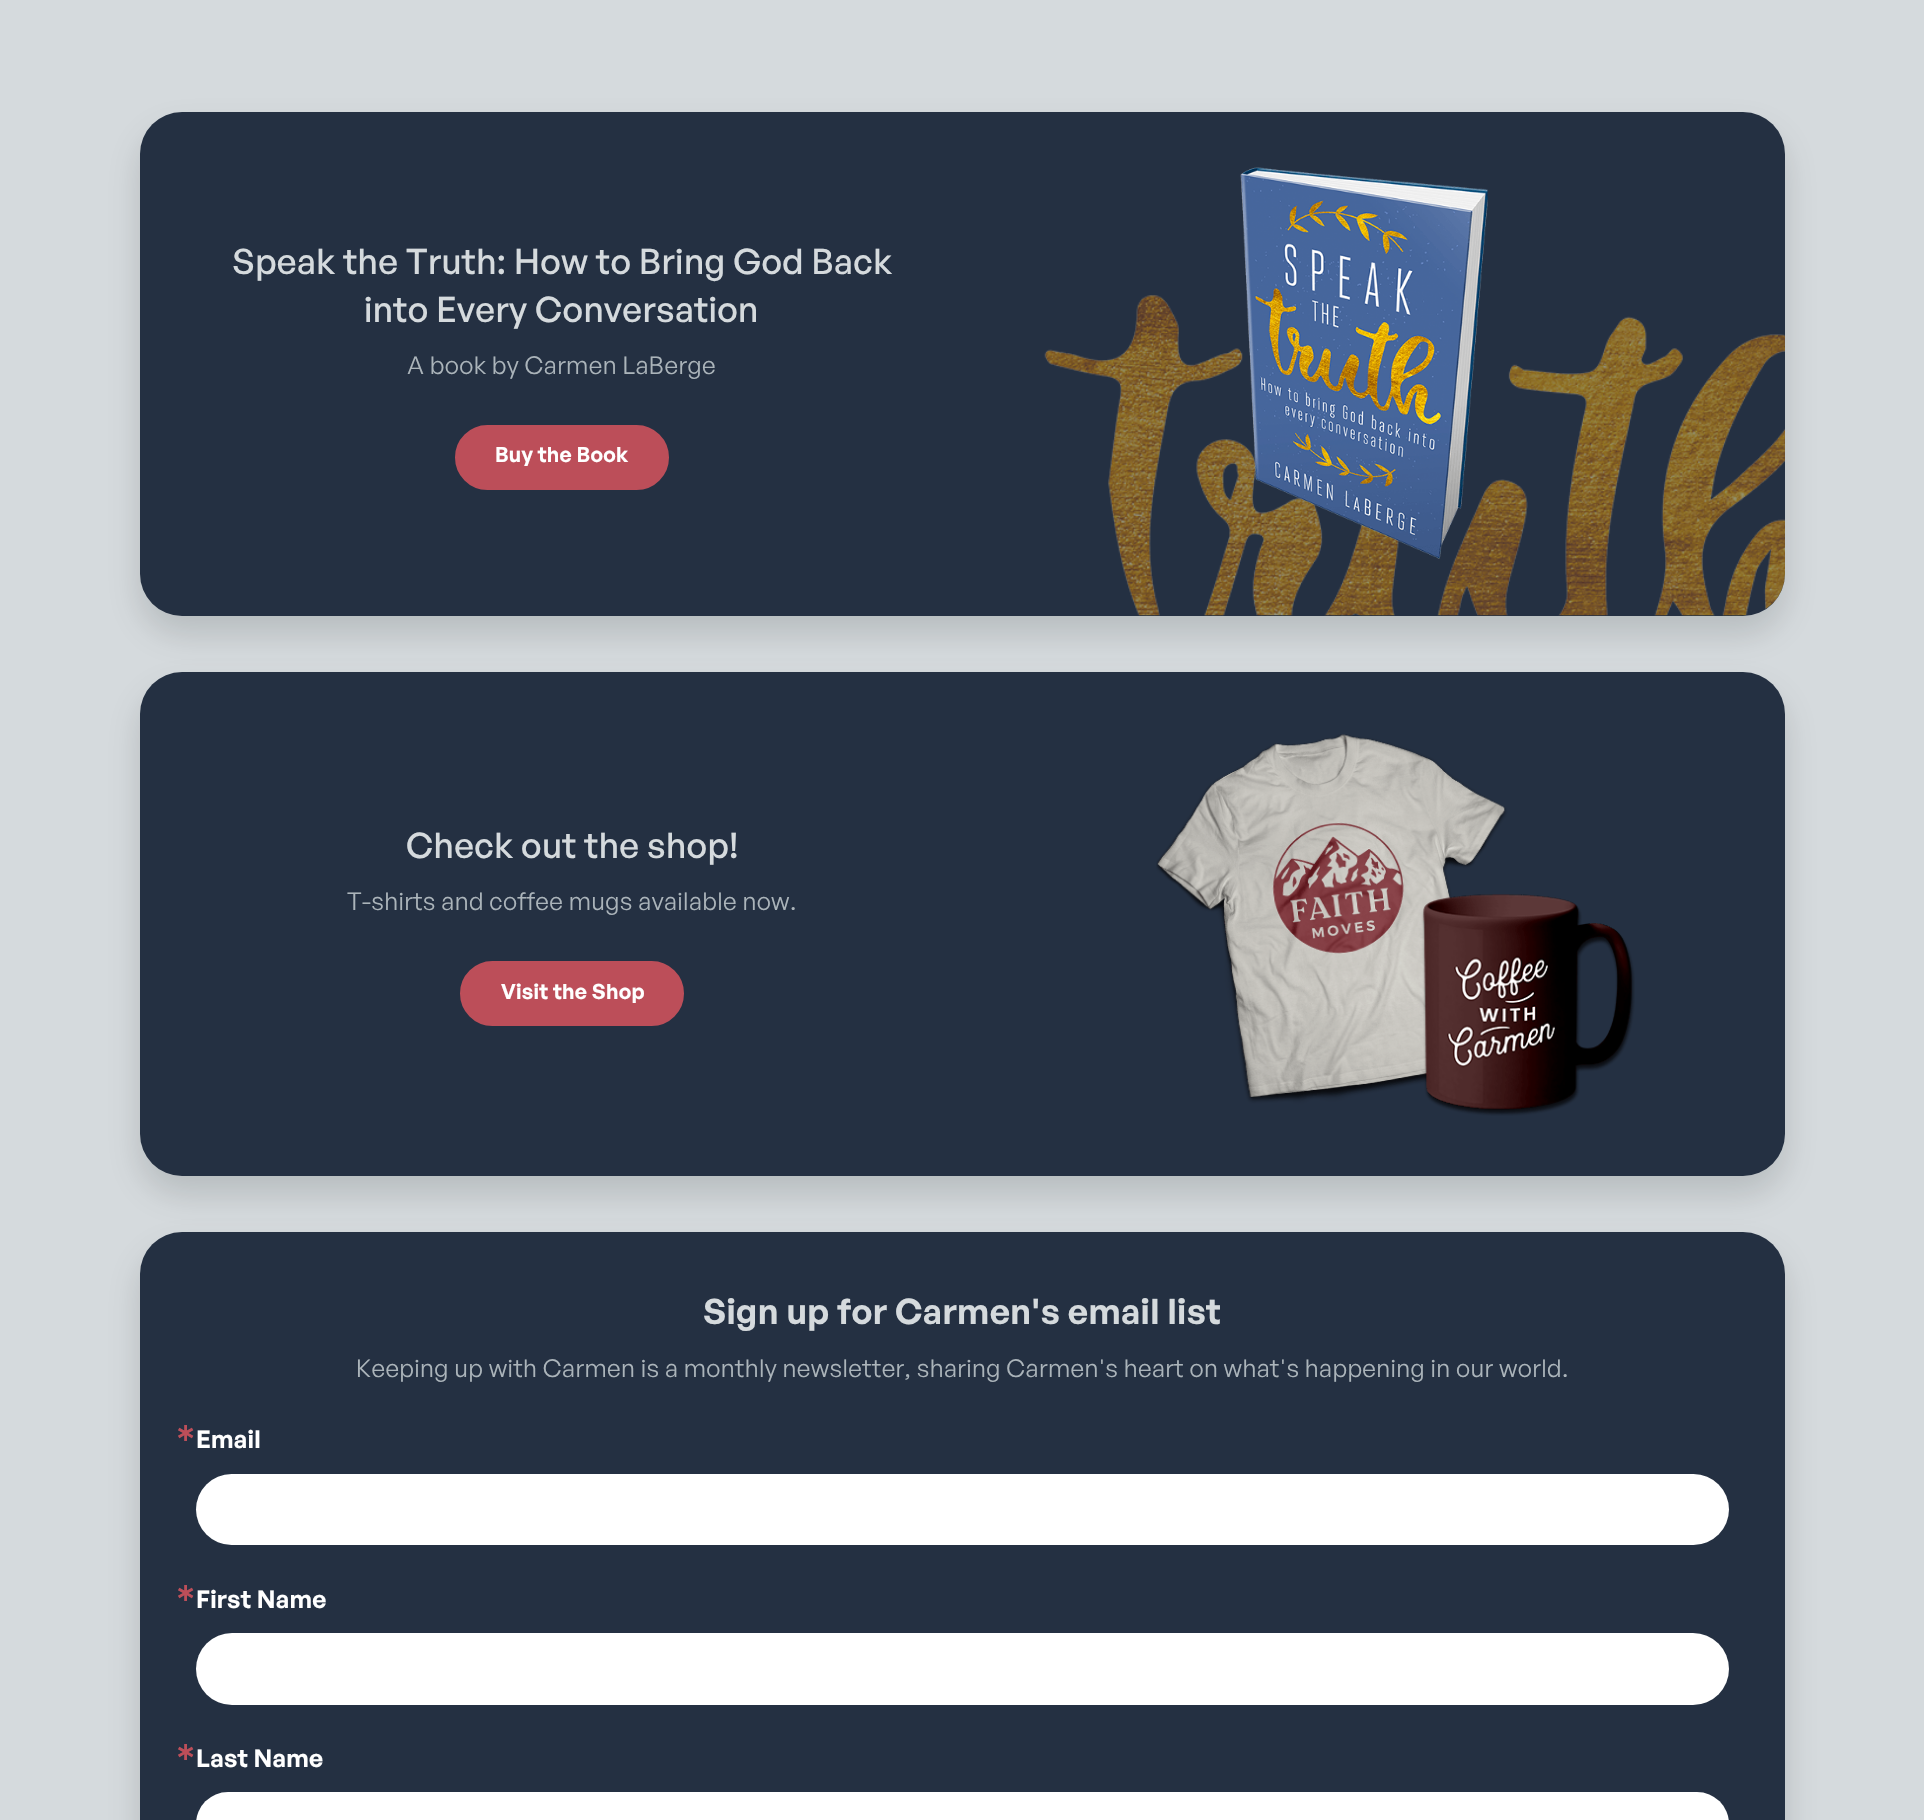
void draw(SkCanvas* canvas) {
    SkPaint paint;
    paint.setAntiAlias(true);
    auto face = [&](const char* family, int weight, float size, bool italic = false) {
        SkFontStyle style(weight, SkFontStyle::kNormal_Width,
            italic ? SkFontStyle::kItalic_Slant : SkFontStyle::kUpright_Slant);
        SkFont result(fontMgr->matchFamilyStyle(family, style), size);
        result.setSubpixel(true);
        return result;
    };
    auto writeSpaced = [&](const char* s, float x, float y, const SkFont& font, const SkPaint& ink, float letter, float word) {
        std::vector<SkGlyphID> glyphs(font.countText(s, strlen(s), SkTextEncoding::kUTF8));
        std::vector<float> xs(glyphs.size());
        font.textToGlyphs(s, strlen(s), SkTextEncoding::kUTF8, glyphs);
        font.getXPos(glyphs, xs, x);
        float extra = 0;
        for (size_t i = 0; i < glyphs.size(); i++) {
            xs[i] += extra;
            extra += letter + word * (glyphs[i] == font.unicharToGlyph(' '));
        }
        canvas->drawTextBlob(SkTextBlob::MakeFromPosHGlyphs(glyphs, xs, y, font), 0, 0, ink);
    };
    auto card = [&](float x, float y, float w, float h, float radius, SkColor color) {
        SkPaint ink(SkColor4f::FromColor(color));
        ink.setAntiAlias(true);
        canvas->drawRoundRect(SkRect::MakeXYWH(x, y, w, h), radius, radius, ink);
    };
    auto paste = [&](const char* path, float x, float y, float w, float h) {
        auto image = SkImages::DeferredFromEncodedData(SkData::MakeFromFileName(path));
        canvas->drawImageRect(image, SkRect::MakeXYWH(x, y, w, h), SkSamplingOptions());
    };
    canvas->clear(SkColorSetRGB(213, 218, 221));
    paint.setColor(SkColorSetARGB(38, 9, 12, 16));
    paint.setMaskFilter(SkMaskFilter::MakeBlur(kNormal_SkBlurStyle, 17.5f));
    canvas->drawRoundRect(SkRect::MakeXYWH(140, 130, 1645, 504), 42, 42, paint);
    paint.setMaskFilter(nullptr);
    card(140, 112, 1645, 504, 42, SkColorSetRGB(36, 48, 66));
    paste("pic1.png", 1044, 295, 741, 321);
    auto kFont1 = face("General Sans", 500, 35);
    paint.setColor(SkColorSetRGB(213, 218, 221));
    writeSpaced("Speak the Truth: How to Bring God Back", 232, 274, kFont1, paint, 0.35f, 0);
    writeSpaced("into Every Conversation", 364, 322, kFont1, paint, 0.35f, 0);
    auto kFont2 = face("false", 400, 24.5f);
    paint.setColor(SkColorSetRGB(171, 180, 186));
    writeSpaced("A book by Carmen LaBerge", 407, 374, kFont2, paint, 0.35f, 0);
    paint.setColor(SkColorSetRGB(188, 78, 89));
    canvas->drawRoundRect(SkRect::MakeXYWH(457, 427, 210, 61), 30.5f, 30.5f, paint);
    paint.setStyle(SkPaint::kStroke_Style);
    paint.setStrokeWidth(4);
    canvas->drawRoundRect(SkRect::MakeXYWH(457, 427, 210, 61), 30.5f, 30.5f, paint);
    auto kFont3 = face("General Sans", 600, 21);
    paint.setStyle(SkPaint::kFill_Style);
    paint.setColor(SK_ColorWHITE);
    writeSpaced("Buy the Book", 495, 462, kFont3, paint, 0.25f, 0);
    paste("pic2.png", 1240, 167, 248, 392);
    paint.setColor(SkColorSetARGB(38, 9, 12, 16));
    paint.setMaskFilter(SkMaskFilter::MakeBlur(kNormal_SkBlurStyle, 17.5f));
    canvas->drawRoundRect(SkRect::MakeXYWH(140, 690, 1645, 504), 42, 42, paint);
    paint.setMaskFilter(nullptr);
    card(140, 672, 1645, 504, 42, SkColorSetRGB(36, 48, 66));
    paint.setColor(SkColorSetRGB(213, 218, 221));
    writeSpaced("Check out the shop!", 406, 858, kFont1, paint, 0.35f, 0);
    paint.setColor(SkColorSetRGB(171, 180, 186));
    writeSpaced("T-shirts and coffee mugs available now.", 347, 910, kFont2, paint, 0.35f, 0);
    paint.setColor(SkColorSetRGB(188, 78, 89));
    canvas->drawRoundRect(SkRect::MakeXYWH(462, 963, 220, 61), 30.5f, 30.5f, paint);
    paint.setStyle(SkPaint::kStroke_Style);
    canvas->drawRoundRect(SkRect::MakeXYWH(462, 963, 220, 61), 30.5f, 30.5f, paint);
    paint.setStyle(SkPaint::kFill_Style);
    paint.setColor(SK_ColorWHITE);
    writeSpaced("Visit the Shop", 501, 999, kFont3, paint, 0.25f, 0);
    paste("pic3.png", 1156, 734, 479, 382);
    paint.setColor(SkColorSetARGB(38, 9, 12, 16));
    paint.setMaskFilter(SkMaskFilter::MakeBlur(kNormal_SkBlurStyle, 17.5f));
    canvas->drawRoundRect(SkRect::MakeXYWH(140, 1250, 1645, 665), 42, 42, paint);
    paint.setMaskFilter(nullptr);
    card(140, 1232, 1645, 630, 42, SkColorSetRGB(36, 48, 66));
    auto kFont4 = face("General Sans", 600, 35);
    paint.setColor(SkColorSetRGB(213, 218, 221));
    writeSpaced("Sign up for Carmen's email list", 703, 1324, kFont4, paint, 0.35f, 0);
    paint.setColor(SkColorSetRGB(171, 180, 186));
    writeSpaced("Keeping up with Carmen is a monthly newsletter, sharing Carmen's heart on what's happening in our world.", 356, 1377, kFont2, paint, 0.35f, 0);
    auto kFont5 = face("DejaVu Sans", 700, 24.5f);
    paint.setColor(SkColorSetRGB(188, 78, 89));
    writeSpaced("∗", 175, 1441, kFont5, paint, 0.25f, 0);
    auto kFont6 = face("General Sans", 600, 24.5f);
    paint.setColor(SK_ColorWHITE);
    writeSpaced("Email", 196, 1448, kFont6, paint, 0.25f, 0);
    card(196, 1474, 1533, 71, 35.5f, SK_ColorWHITE);
    paint.setColor(SkColorSetRGB(188, 78, 89));
    writeSpaced("∗", 175, 1601, kFont5, paint, 0.25f, 0);
    paint.setColor(SK_ColorWHITE);
    writeSpaced("First Name", 196, 1608, kFont6, paint, 0.25f, 0);
    card(196, 1633, 1533, 72, 36, SK_ColorWHITE);
    paint.setColor(SkColorSetRGB(188, 78, 89));
    writeSpaced("∗", 175, 1760, kFont5, paint, 0.25f, 0);
    paint.setColor(SK_ColorWHITE);
    writeSpaced("Last Name", 196, 1767, kFont6, paint, 0.25f, 0);
    card(196, 1792, 1533, 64, 36, SK_ColorWHITE);
}
